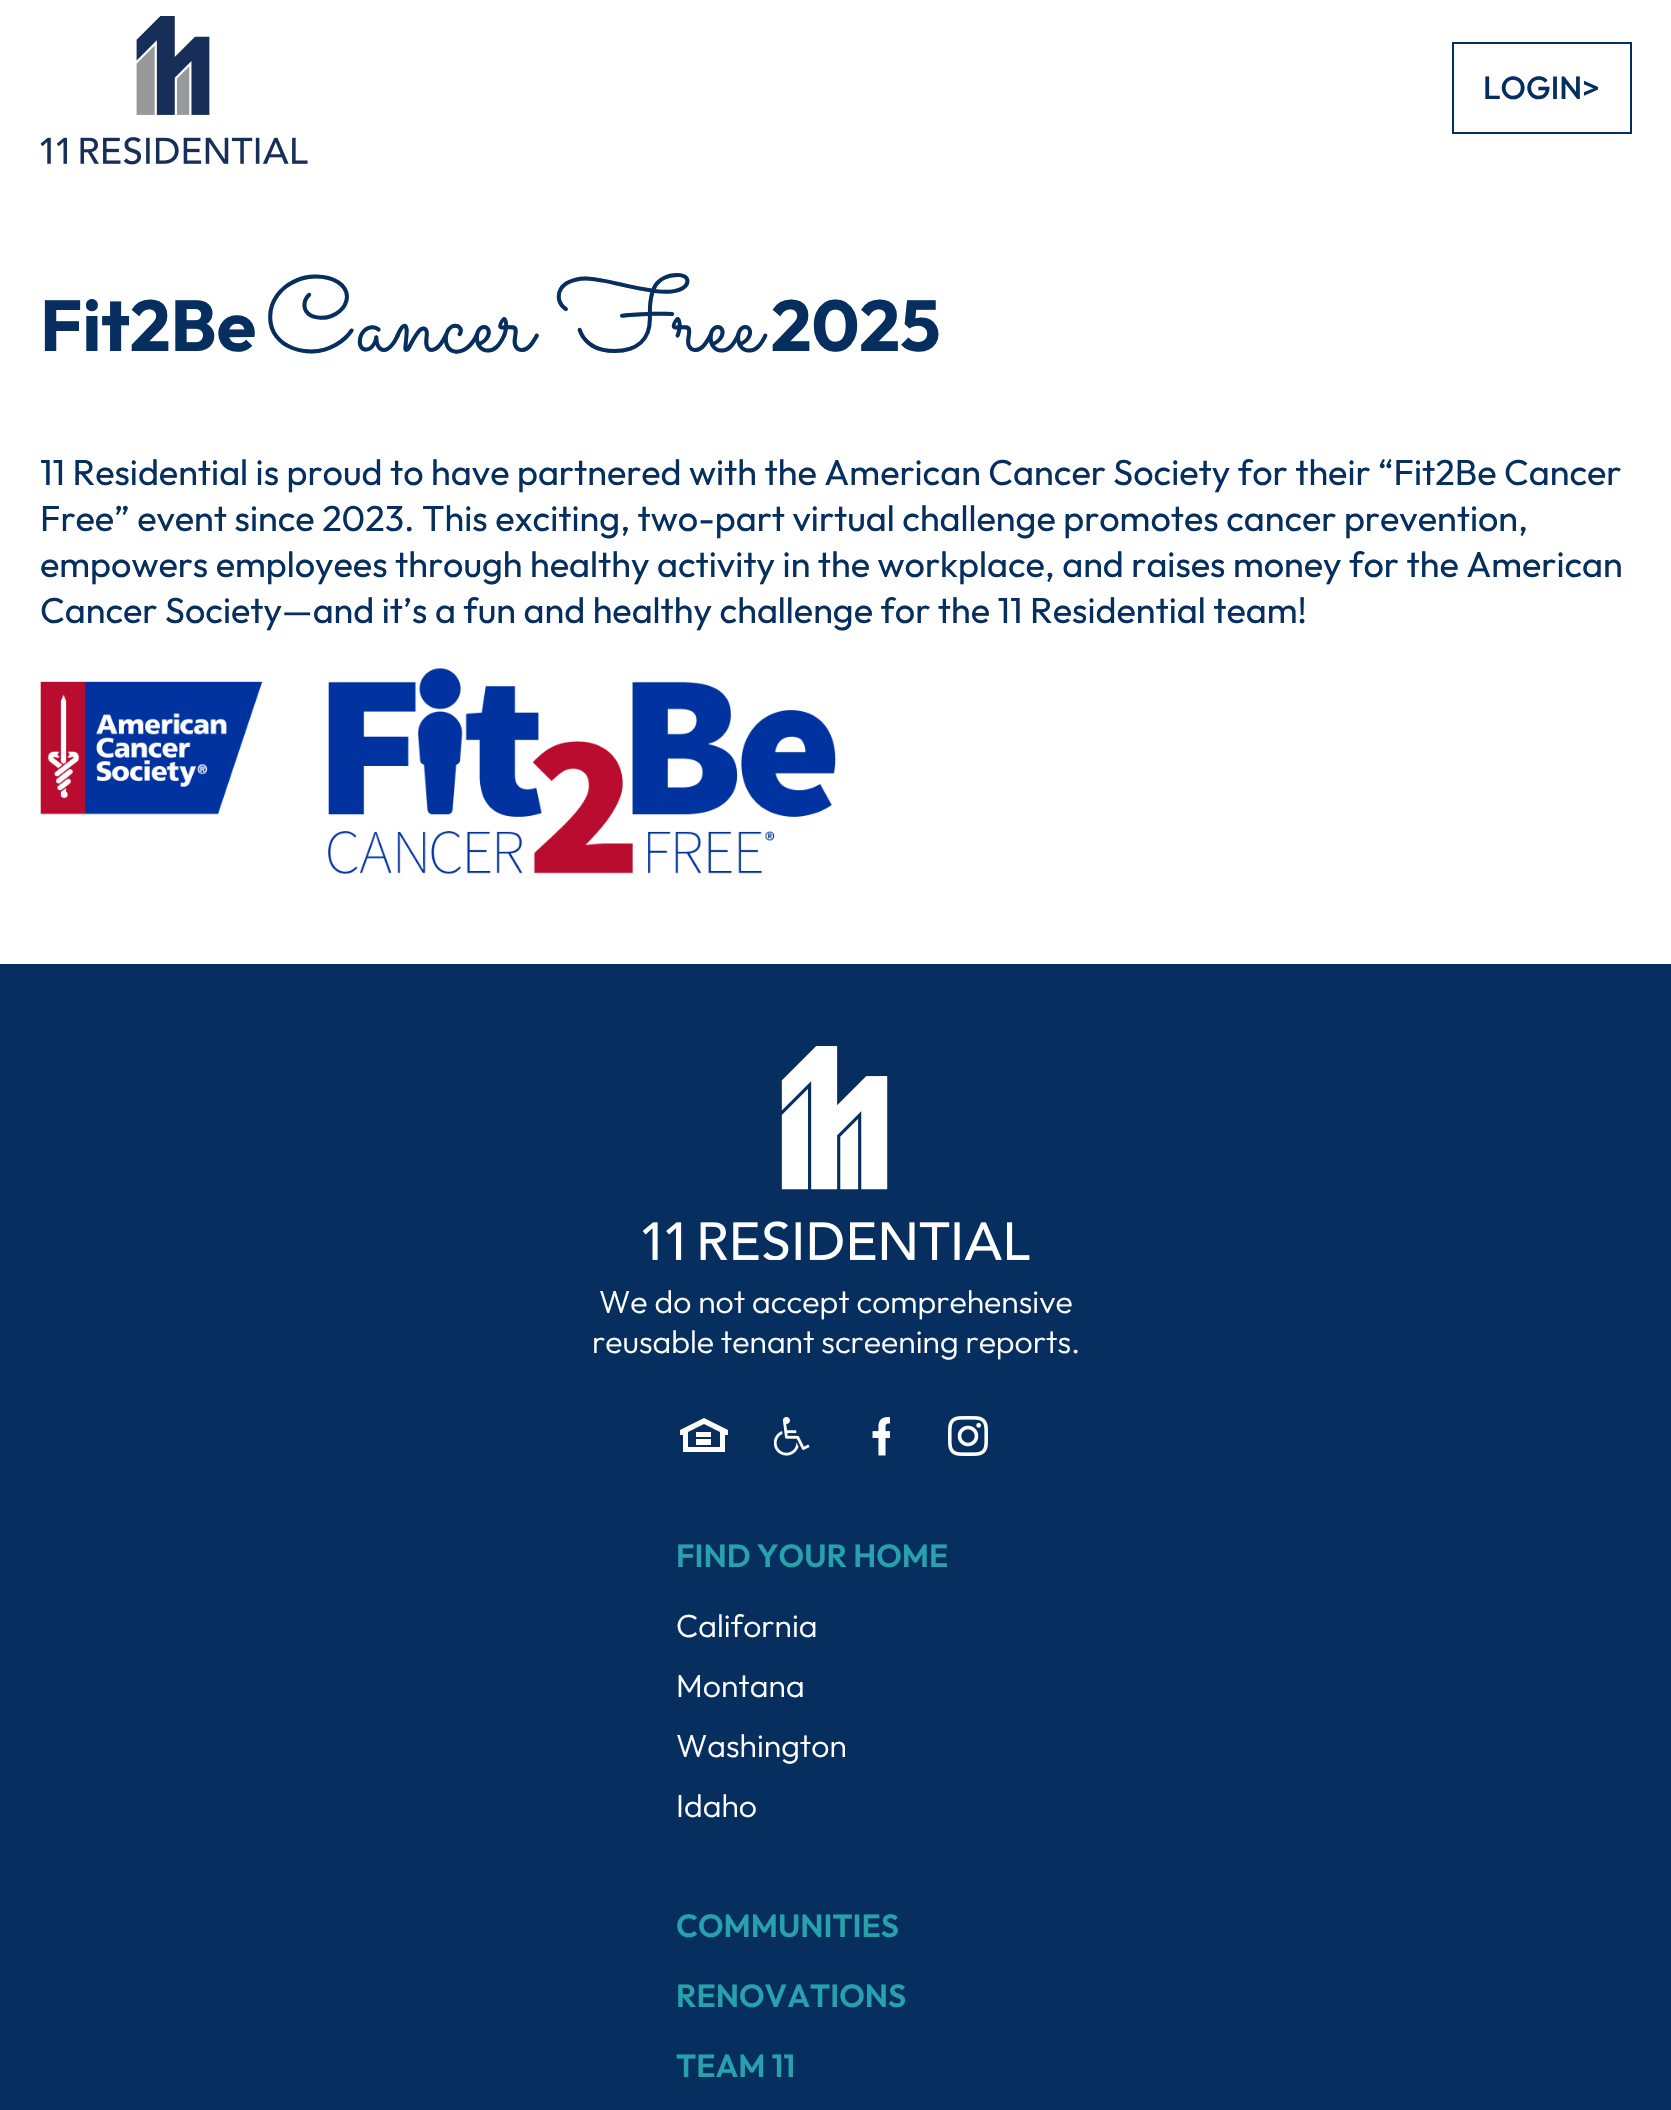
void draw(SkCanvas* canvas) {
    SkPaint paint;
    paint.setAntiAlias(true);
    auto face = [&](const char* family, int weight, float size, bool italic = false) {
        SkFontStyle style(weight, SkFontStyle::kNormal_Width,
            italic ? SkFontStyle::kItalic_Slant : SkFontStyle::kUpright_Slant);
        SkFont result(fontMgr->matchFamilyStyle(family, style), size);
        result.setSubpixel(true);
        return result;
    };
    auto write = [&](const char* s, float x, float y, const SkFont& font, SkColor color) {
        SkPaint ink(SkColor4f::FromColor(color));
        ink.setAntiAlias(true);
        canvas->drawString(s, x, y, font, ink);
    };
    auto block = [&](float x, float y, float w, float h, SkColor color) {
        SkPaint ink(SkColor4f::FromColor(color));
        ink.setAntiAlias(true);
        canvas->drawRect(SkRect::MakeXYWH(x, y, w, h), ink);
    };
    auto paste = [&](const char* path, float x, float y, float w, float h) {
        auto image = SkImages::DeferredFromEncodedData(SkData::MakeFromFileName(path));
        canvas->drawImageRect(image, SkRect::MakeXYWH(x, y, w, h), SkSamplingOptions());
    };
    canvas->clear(SK_ColorWHITE);
    paste("pic1.png", 40, 16, 268, 149);
    auto kFont1 = face("Outfit", 500, 32);
    write("LOGIN>", 1483, 99, kFont1, SkColorSetRGB(6, 47, 95));
    block(1452, 42, 180, 2, SkColorSetRGB(6, 47, 95));
    block(1452, 132, 130, 2, SkColorSetRGB(6, 47, 95));
    block(1452, 42, 2, 92, SkColorSetRGB(6, 47, 95));
    block(1630, 42, 2, 92, SkColorSetRGB(6, 47, 95));
    block(1582, 132, 50, 2, SkColorSetRGB(6, 47, 95));
    auto kFont2 = face("Outfit", 700, 72);
    write("Fit2Be", 40, 351, kFont2, SkColorSetRGB(6, 47, 95));
    auto kFont3 = face("Sacramento", 400, 108);
    write("Cancer Free", 265, 351, kFont3, SkColorSetRGB(6, 47, 95));
    write("2025", 771, 351, kFont2, SkColorSetRGB(6, 47, 95));
    auto kFont4 = face("Outfit", 400, 36);
    write("11 Residential is proud to have partnered with the American Cancer Society for their “Fit2Be Cancer", 40, 485, kFont4, SkColorSetRGB(6, 47, 95));
    write("Free” event since 2023. This exciting, two-part virtual challenge promotes cancer prevention,", 40, 531, kFont4, SkColorSetRGB(6, 47, 95));
    write("empowers employees through healthy activity in the workplace, and raises money for the American", 40, 577, kFont4, SkColorSetRGB(6, 47, 95));
    write("Cancer Society—and it’s a fun and healthy challenge for the 11 Residential team!", 40, 623, kFont4, SkColorSetRGB(6, 47, 95));
    paste("pic2.png", 40, 667, 796, 208);
    block(0, 964, 1671, 1146, SkColorSetRGB(6, 47, 95));
    paste("pic3.png", 642, 1046, 388, 214);
    auto kFont5 = face("Outfit", 300, 32);
    write("We do not accept comprehensive", 599, 1313, kFont5, SK_ColorWHITE);
    write("reusable tenant screening reports.", 592, 1353, kFont5, SK_ColorWHITE);
    paint.setColor(SK_ColorWHITE);
    canvas->drawPath(SkPathBuilder().moveTo(688, 1432).lineTo(704, 1424).lineTo(720, 1432).lineTo(720, 1447).lineTo(688, 1447).close().moveTo(704, 1418).lineTo(680, 1430).lineTo(680, 1435).lineTo(683, 1435).lineTo(683, 1452).lineTo(725, 1452).lineTo(725, 1435).lineTo(728, 1435).lineTo(728, 1430).close().detach(), paint);
    block(696, 1432, 15, 5, SK_ColorWHITE);
    block(696, 1439, 15, 6, SK_ColorWHITE);
    paste("pic4.png", 774, 1416, 36, 40);
    paste("pic5.png", 872, 1417, 18, 39);
    paste("pic6.png", 948, 1416, 40, 40);
    auto kFont6 = face("Outfit", 600, 32);
    write("FIND YOUR HOME", 676, 1567, kFont6, SkColorSetRGB(39, 161, 172));
    write("California", 676, 1637, kFont5, SK_ColorWHITE);
    write("Montana", 676, 1697, kFont5, SK_ColorWHITE);
    write("Washington", 676, 1757, kFont5, SK_ColorWHITE);
    write("Idaho", 676, 1817, kFont5, SK_ColorWHITE);
    write("COMMUNITIES", 676, 1937, kFont6, SkColorSetRGB(39, 161, 172));
    write("RENOVATIONS", 676, 2007, kFont6, SkColorSetRGB(39, 161, 172));
    write("TEAM 11", 676, 2077, kFont6, SkColorSetRGB(39, 161, 172));
}
